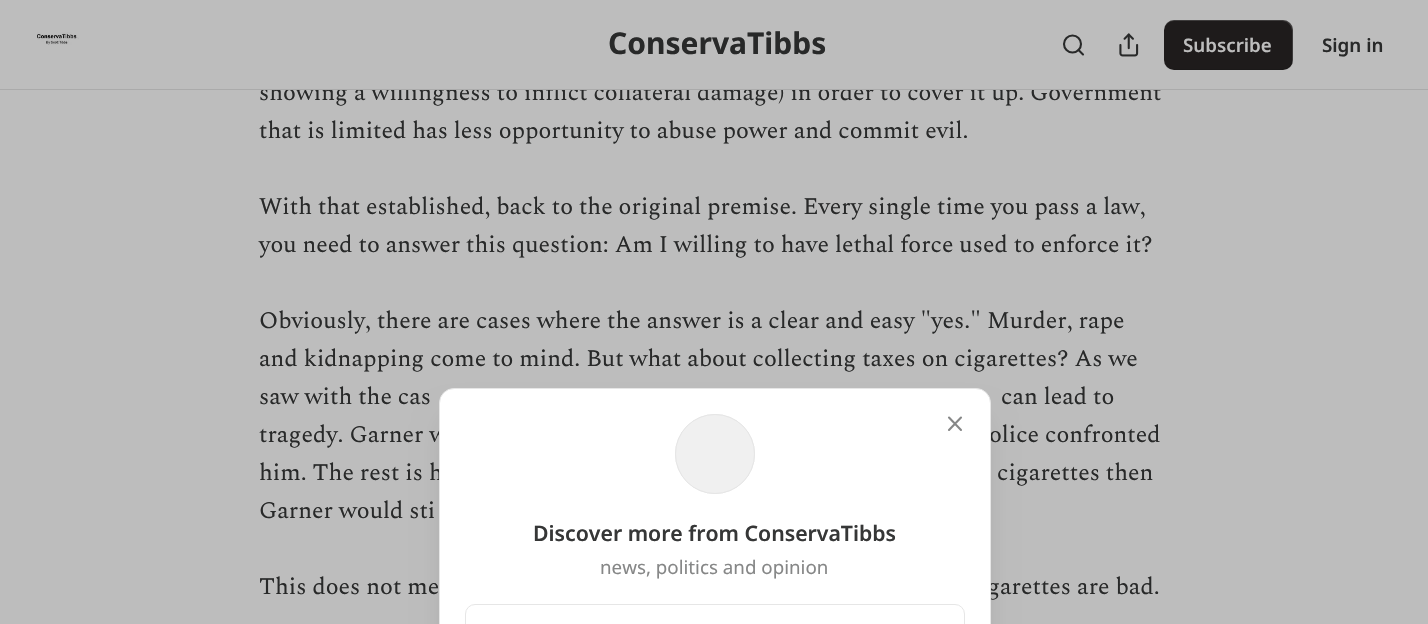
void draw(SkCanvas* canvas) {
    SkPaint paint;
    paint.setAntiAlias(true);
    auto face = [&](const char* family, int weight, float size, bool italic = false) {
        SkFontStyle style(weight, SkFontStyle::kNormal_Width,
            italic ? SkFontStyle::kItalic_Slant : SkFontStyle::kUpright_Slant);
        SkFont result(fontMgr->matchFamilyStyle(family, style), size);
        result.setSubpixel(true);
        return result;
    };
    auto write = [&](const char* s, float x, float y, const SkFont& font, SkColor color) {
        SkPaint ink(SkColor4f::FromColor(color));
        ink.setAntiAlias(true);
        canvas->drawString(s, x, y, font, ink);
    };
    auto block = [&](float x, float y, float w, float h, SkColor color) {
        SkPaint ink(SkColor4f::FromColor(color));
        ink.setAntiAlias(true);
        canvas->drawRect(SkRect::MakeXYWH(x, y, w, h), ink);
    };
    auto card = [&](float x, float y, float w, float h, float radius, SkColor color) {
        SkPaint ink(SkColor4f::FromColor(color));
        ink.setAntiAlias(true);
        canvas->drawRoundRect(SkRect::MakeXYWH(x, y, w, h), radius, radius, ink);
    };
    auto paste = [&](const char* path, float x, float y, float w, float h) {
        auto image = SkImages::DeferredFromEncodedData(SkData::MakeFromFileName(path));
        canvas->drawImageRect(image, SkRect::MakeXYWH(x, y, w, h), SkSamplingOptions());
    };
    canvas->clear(SkColorSetRGB(189, 189, 189));
    auto kFont1 = face("Spectral", 400, 23.75f);
    write("showing a willingness to inflict collateral damage) in order to cover it up. Government", 259, 100, kFont1, SkColorSetRGB(40, 41, 41));
    block(270, 82, 888, 7, SkColorSetRGB(189, 189, 189));
    block(0, 89, 1428, 1, SkColorSetRGB(170, 170, 170));
    paste("pic1.png", 37, 32, 42, 13);
    auto kFont2 = face("Noto Sans", 700, 30);
    write("ConservaTibbs", 608, 54, kFont2, SkColorSetRGB(40, 41, 41));
    paint.setStyle(SkPaint::kStroke_Style);
    paint.setStrokeWidth(2.1f);
    paint.setColor(SkColorSetRGB(40, 41, 41));
    canvas->drawCircle(1072.5f, 44, 8.5f, paint);
    paint.setStrokeCap(SkPaint::kRound_Cap);
    paint.setStrokeJoin(SkPaint::kRound_Join);
    canvas->drawPath(SkPathBuilder().moveTo(1083, 54.5f).lineTo(1078.5f, 50).detach(), paint);
    paste("pic2.png", 1119, 33, 20, 24);
    card(1164, 20, 129, 50, 10, SkColorSetRGB(30, 27, 27));
    paint.setStyle(SkPaint::kFill_Style);
    paint.setColor(SkColorSetARGB(26, 0, 0, 0));
    canvas->drawPath(SkPathBuilder().moveTo(1164, 59).lineTo(1164, 60).cubicTo(1164, 66, 1168, 70, 1174, 70).lineTo(1283, 70).cubicTo(1289, 70, 1293, 66, 1293, 60).lineTo(1293, 30).cubicTo(1293, 28, 1292, 25, 1291, 24).cubicTo(1292, 25, 1292, 27, 1292, 29).lineTo(1292, 59).cubicTo(1292, 64, 1288, 69, 1282, 69).lineTo(1174, 69).cubicTo(1168, 69, 1164, 64, 1164, 59).close().detach(), paint);
    paint.setColor(SkColorSetARGB(51, 189, 189, 189));
    canvas->drawPath(SkPathBuilder().moveTo(1174, 21).lineTo(1282, 21).cubicTo(1288, 21, 1292, 26, 1292, 31).lineTo(1292, 61).cubicTo(1292, 63, 1292, 65, 1291, 66).cubicTo(1292, 65, 1293, 62, 1293, 60).lineTo(1293, 30).cubicTo(1293, 24, 1289, 20, 1283, 20).lineTo(1174, 20).cubicTo(1168, 20, 1164, 24, 1164, 30).lineTo(1164, 31).cubicTo(1164, 26, 1168, 21, 1174, 21).close().detach(), paint);
    auto kFont3 = face("Noto Sans", 600, 18.75f);
    write("Subscribe", 1183, 52, kFont3, SkColorSetRGB(189, 189, 189));
    write("Sign in", 1322, 52, kFont3, SkColorSetRGB(40, 41, 41));
    write("that is limited has less opportunity to abuse power and commit evil.", 259, 138, kFont1, SkColorSetRGB(40, 41, 41));
    write("With that established, back to the original premise. Every single time you pass a law,", 259, 214, kFont1, SkColorSetRGB(40, 41, 41));
    write("you need to answer this question: Am I willing to have lethal force used to enforce it?", 259, 252, kFont1, SkColorSetRGB(40, 41, 41));
    write("Obviously, there are cases where the answer is a clear and easy \"yes.\" Murder, rape", 259, 328, kFont1, SkColorSetRGB(40, 41, 41));
    write("and kidnapping come to mind. But what about collecting taxes on cigarettes? As we", 259, 366, kFont1, SkColorSetRGB(40, 41, 41));
    write("saw with the cas", 259, 404, kFont1, SkColorSetRGB(40, 41, 41));
    write("can lead to", 1001, 404, kFont1, SkColorSetRGB(40, 41, 41));
    write("tragedy. Garner w", 259, 442, kFont1, SkColorSetRGB(40, 41, 41));
    write("olice confronted", 989, 442, kFont1, SkColorSetRGB(40, 41, 41));
    write("him. The rest is h", 259, 480, kFont1, SkColorSetRGB(40, 41, 41));
    write("cigarettes then", 997, 480, kFont1, SkColorSetRGB(40, 41, 41));
    write("Garner would sti", 259, 518, kFont1, SkColorSetRGB(40, 41, 41));
    write("This does not me", 259, 594, kFont1, SkColorSetRGB(40, 41, 41));
    write("garettes are bad.", 987, 594, kFont1, SkColorSetRGB(40, 41, 41));
    paint.setColor(SkColorSetARGB(26, 0, 0, 0));
    paint.setMaskFilter(SkMaskFilter::MakeBlur(kNormal_SkBlurStyle, 15.5f));
    canvas->drawRoundRect(SkRect::MakeXYWH(445, 419, 540, 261), 9, 9, paint);
    paint.setMaskFilter(nullptr);
    paint.setColor(SK_ColorWHITE);
    canvas->drawRoundRect(SkRect::MakeXYWH(439.5f, 388.5f, 551, 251), 14.5f, 14.5f, paint);
    paint.setStyle(SkPaint::kStroke_Style);
    paint.setStrokeWidth(1);
    paint.setStrokeCap(SkPaint::kButt_Cap);
    paint.setStrokeJoin(SkPaint::kMiter_Join);
    paint.setColor(SkColorSetRGB(230, 230, 230));
    canvas->drawRoundRect(SkRect::MakeXYWH(439.5f, 388.5f, 551, 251), 14.5f, 14.5f, paint);
    canvas->drawCircle(715, 454, 39.5f, paint);
    paint.setStyle(SkPaint::kFill_Style);
    paint.setColor(SkColorSetRGB(240, 240, 240));
    canvas->drawCircle(715, 454, 39.5f, paint);
    paint.setStyle(SkPaint::kStroke_Style);
    paint.setColor(SkColorSetRGB(230, 230, 230));
    canvas->drawCircle(715, 454, 39.5f, paint);
    paint.setStrokeWidth(2.1f);
    paint.setStrokeCap(SkPaint::kRound_Cap);
    paint.setStrokeJoin(SkPaint::kRound_Join);
    paint.setColor(SkColorSetRGB(134, 135, 135));
    canvas->drawPath(SkPathBuilder().moveTo(961, 417.5f).lineTo(949, 430).moveTo(949, 417.5f).lineTo(961, 430).detach(), paint);
    auto kFont4 = face("Noto Sans", 600, 21.25f);
    write("Discover more from ConservaTibbs", 533, 541, kFont4, SkColorSetRGB(54, 55, 55));
    auto kFont5 = face("Noto Sans", 400, 18.75f);
    write("news, politics and opinion", 600, 574, kFont5, SkColorSetRGB(134, 135, 135));
    paint.setStrokeWidth(1);
    paint.setStrokeCap(SkPaint::kButt_Cap);
    paint.setStrokeJoin(SkPaint::kMiter_Join);
    paint.setColor(SkColorSetRGB(230, 230, 230));
    canvas->drawRoundRect(SkRect::MakeXYWH(465.5f, 604.5f, 499, 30), 9.5f, 9.5f, paint);
}
